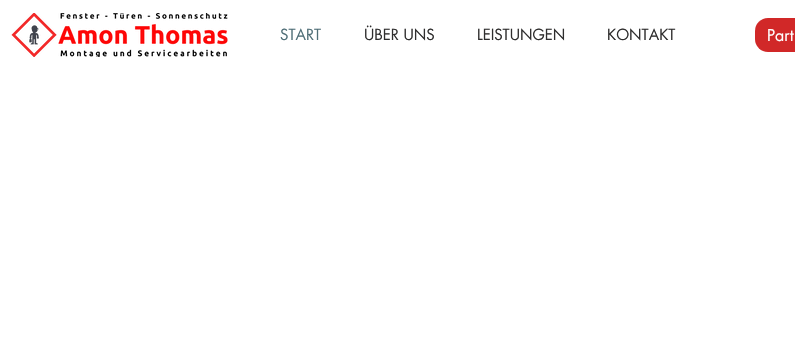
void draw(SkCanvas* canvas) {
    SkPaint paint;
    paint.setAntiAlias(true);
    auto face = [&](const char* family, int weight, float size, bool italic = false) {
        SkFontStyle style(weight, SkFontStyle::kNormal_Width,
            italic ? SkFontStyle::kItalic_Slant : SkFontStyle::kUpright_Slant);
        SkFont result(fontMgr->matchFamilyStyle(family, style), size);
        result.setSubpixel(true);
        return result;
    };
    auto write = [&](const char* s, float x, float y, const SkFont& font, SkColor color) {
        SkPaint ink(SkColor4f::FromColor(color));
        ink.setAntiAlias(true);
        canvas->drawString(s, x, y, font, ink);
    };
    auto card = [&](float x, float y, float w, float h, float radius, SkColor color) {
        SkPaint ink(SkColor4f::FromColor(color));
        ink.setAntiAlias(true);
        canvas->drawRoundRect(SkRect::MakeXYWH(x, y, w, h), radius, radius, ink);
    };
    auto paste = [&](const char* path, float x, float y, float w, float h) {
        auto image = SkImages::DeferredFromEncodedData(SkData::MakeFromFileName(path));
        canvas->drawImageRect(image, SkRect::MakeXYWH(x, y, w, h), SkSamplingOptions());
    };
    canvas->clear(SK_ColorWHITE);
    paste("pic1.png", 11, 13, 217, 44);
    auto kFont1 = face("futura", 400, 15);
    write("START", 280, 40, kFont1, SkColorSetRGB(79, 110, 119));
    write("ÜBER UNS", 364, 40, kFont1, SkColorSetRGB(47, 46, 46));
    write("LEISTUNGEN", 477, 40, kFont1, SkColorSetRGB(47, 46, 46));
    write("KONTAKT", 607, 40, kFont1, SkColorSetRGB(47, 46, 46));
    card(755, 18, 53, 34, 13, SkColorSetRGB(209, 40, 40));
    auto kFont2 = face("futura", 400, 16);
    write("Part", 767, 41, kFont2, SK_ColorWHITE);
}
